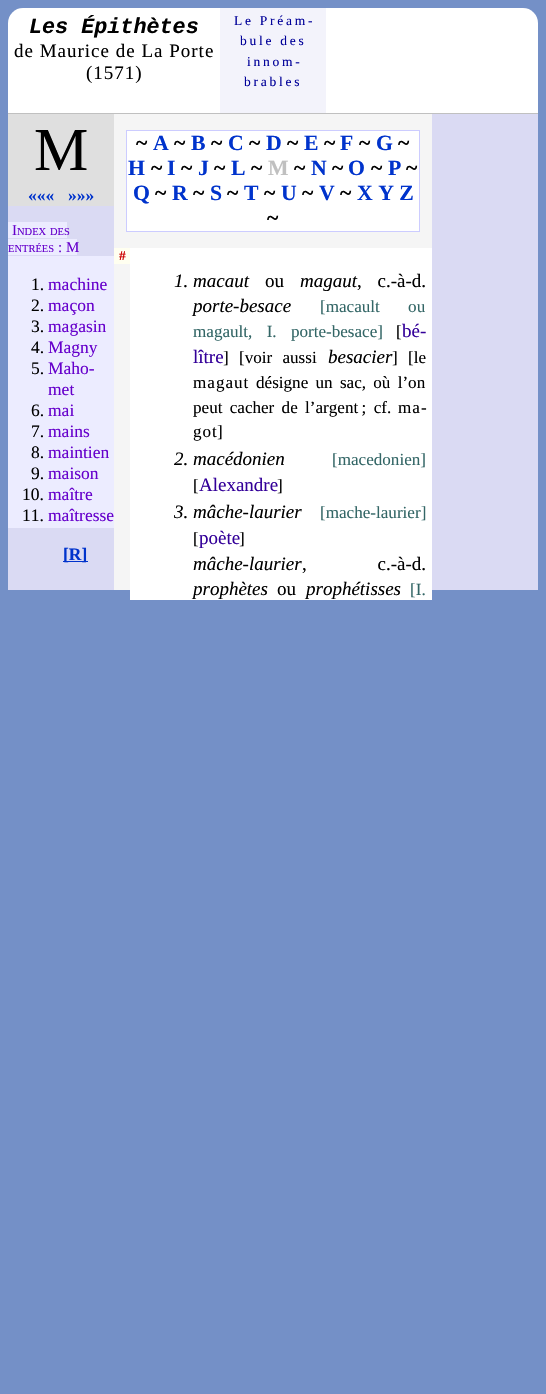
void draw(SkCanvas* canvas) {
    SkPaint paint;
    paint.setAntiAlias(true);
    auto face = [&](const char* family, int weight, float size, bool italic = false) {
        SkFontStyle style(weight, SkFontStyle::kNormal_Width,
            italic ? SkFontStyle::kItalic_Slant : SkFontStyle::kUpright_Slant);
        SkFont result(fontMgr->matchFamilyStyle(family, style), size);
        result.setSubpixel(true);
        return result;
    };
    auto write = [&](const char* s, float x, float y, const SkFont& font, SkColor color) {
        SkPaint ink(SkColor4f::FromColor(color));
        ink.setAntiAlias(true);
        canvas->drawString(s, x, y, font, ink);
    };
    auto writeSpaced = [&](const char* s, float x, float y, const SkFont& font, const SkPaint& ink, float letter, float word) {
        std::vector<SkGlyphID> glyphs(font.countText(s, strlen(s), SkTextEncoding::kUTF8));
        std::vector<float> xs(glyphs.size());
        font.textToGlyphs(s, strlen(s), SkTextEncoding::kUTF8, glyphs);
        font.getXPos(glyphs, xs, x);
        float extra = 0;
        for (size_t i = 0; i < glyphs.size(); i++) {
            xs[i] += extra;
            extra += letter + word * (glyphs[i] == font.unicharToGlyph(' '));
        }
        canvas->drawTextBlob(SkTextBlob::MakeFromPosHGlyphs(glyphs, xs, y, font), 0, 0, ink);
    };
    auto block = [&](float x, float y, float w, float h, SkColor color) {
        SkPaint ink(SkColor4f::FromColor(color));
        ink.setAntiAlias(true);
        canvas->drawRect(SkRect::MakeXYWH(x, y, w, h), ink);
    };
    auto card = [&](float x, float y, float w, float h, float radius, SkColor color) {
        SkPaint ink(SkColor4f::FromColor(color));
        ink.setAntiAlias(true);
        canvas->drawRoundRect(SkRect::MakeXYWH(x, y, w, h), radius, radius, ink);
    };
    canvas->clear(SkColorSetRGB(116, 144, 199));
    card(8, 8, 530, 582, 15, SK_ColorWHITE);
    auto kFont1 = face("Liberation Mono", 700, 21.75f, true);
    write("Les Épithètes", 29, 33, kFont1, SK_ColorBLACK);
    auto kFont2 = face("Liberation Serif", 400, 19);
    paint.setColor(SK_ColorBLACK);
    writeSpaced("de Maurice de La Porte", 14, 57, kFont2, paint, 1, 0);
    writeSpaced("(1571)", 86, 79, kFont2, paint, 1, 0);
    block(220, 8, 106, 105, SkColorSetRGB(243, 243, 251));
    auto kFont3 = face("Liberation Serif", 400, 13.5f);
    paint.setColor(SkColorSetRGB(0, 0, 153));
    writeSpaced("Le Préam-", 234, 25, kFont3, paint, 2.75f, 0);
    writeSpaced("bule des", 240, 45, kFont3, paint, 2.75f, 0);
    writeSpaced("innom-", 247, 66, kFont3, paint, 2.75f, 0);
    writeSpaced("brables", 244, 86, kFont3, paint, 2.75f, 0);
    block(8, 114, 530, 476, SkColorSetRGB(218, 218, 243));
    block(8, 113, 530, 1, SkColorSetRGB(192, 192, 192));
    block(8, 114, 106, 92, SkColorSetRGB(223, 223, 223));
    auto kFont4 = face("Liberation Serif", 400, 61);
    write("M", 34, 170, kFont4, SK_ColorBLACK);
    auto kFont5 = face("Liberation Serif", 700, 17.5f);
    write("«««", 28, 201, kFont5, SkColorSetRGB(0, 51, 204));
    write("»»»", 68, 201, kFont5, SkColorSetRGB(0, 51, 204));
    block(8, 222, 59, 16, SkColorSetRGB(236, 236, 255));
    auto kFont6 = face("Liberation Serif", 400, 15);
    write("I", 12, 235, kFont6, SkColorSetRGB(102, 0, 204));
    auto kFont7 = face("Liberation Serif", 400, 10.5f);
    write("NDEX", 17, 235, kFont7, SkColorSetRGB(102, 0, 204));
    write("DES", 50, 235, kFont7, SkColorSetRGB(102, 0, 204));
    block(8, 239, 69, 16, SkColorSetRGB(236, 236, 255));
    write("ENTRÉES", 8, 252, kFont7, SkColorSetRGB(102, 0, 204));
    write(": M", 58, 252, kFont6, SkColorSetRGB(102, 0, 204));
    block(8, 256, 106, 272, SkColorSetRGB(236, 236, 255));
    auto kFont8 = face("Liberation Serif", 400, 17.5f);
    write("1.", 31, 290, kFont8, SK_ColorBLACK);
    write("machine", 48, 290, kFont8, SkColorSetRGB(102, 0, 204));
    write("2.", 31, 311, kFont8, SK_ColorBLACK);
    write("maçon", 48, 311, kFont8, SkColorSetRGB(102, 0, 204));
    write("3.", 31, 332, kFont8, SK_ColorBLACK);
    write("magasin", 48, 332, kFont8, SkColorSetRGB(102, 0, 204));
    write("4.", 31, 353, kFont8, SK_ColorBLACK);
    write("Magny", 48, 353, kFont8, SkColorSetRGB(102, 0, 204));
    write("5.", 31, 374, kFont8, SK_ColorBLACK);
    write("Maho-", 48, 374, kFont8, SkColorSetRGB(102, 0, 204));
    write("met", 48, 395, kFont8, SkColorSetRGB(102, 0, 204));
    write("6.", 31, 416, kFont8, SK_ColorBLACK);
    write("mai", 48, 416, kFont8, SkColorSetRGB(102, 0, 204));
    write("7.", 31, 437, kFont8, SK_ColorBLACK);
    write("mains", 48, 437, kFont8, SkColorSetRGB(102, 0, 204));
    write("8.", 31, 458, kFont8, SK_ColorBLACK);
    write("maintien", 48, 458, kFont8, SkColorSetRGB(102, 0, 204));
    write("9.", 31, 479, kFont8, SK_ColorBLACK);
    write("maison", 48, 479, kFont8, SkColorSetRGB(102, 0, 204));
    write("10.", 22, 500, kFont8, SK_ColorBLACK);
    write("maître", 48, 500, kFont8, SkColorSetRGB(102, 0, 204));
    write("11.", 22, 521, kFont8, SK_ColorBLACK);
    canvas->save();
    canvas->clipRect(SkRect::MakeXYWH(8, 256, 106, 272));
    write("maîtresse", 48, 521, kFont8, SkColorSetRGB(102, 0, 204));
    canvas->restore();
    block(63, 561, 25, 1, SkColorSetRGB(0, 51, 204));
    write("[R]", 63, 560, kFont5, SkColorSetRGB(0, 51, 204));
    block(114, 114, 318, 476, SkColorSetRGB(245, 245, 245));
    paint.setColor(SK_ColorWHITE);
    canvas->drawRect(SkRect::MakeXYWH(126.5f, 130.5f, 293, 101), paint);
    paint.setStyle(SkPaint::kStroke_Style);
    paint.setStrokeWidth(1);
    paint.setColor(SkColorSetRGB(204, 204, 255));
    canvas->drawRect(SkRect::MakeXYWH(126.5f, 130.5f, 293, 101), paint);
    auto kFont9 = face("Liberation Serif", 700, 21.75f);
    write("~", 136, 150, kFont9, SK_ColorBLACK);
    write("A", 153, 150, kFont9, SkColorSetRGB(0, 51, 204));
    write("~", 174, 150, kFont9, SK_ColorBLACK);
    write("B", 191, 150, kFont9, SkColorSetRGB(0, 51, 204));
    write("~", 211, 150, kFont9, SK_ColorBLACK);
    write("C", 228, 150, kFont9, SkColorSetRGB(0, 51, 204));
    write("~", 249, 150, kFont9, SK_ColorBLACK);
    write("D", 266, 150, kFont9, SkColorSetRGB(0, 51, 204));
    write("~", 287, 150, kFont9, SK_ColorBLACK);
    write("E", 304, 150, kFont9, SkColorSetRGB(0, 51, 204));
    write("~", 324, 150, kFont9, SK_ColorBLACK);
    write("F", 340, 150, kFont9, SkColorSetRGB(0, 51, 204));
    write("~", 359, 150, kFont9, SK_ColorBLACK);
    write("G", 376, 150, kFont9, SkColorSetRGB(0, 51, 204));
    write("~", 398, 150, kFont9, SK_ColorBLACK);
    write("H", 128, 175, kFont9, SkColorSetRGB(0, 51, 204));
    write("~", 151, 175, kFont9, SK_ColorBLACK);
    write("I", 167, 175, kFont9, SkColorSetRGB(0, 51, 204));
    write("~", 181, 175, kFont9, SK_ColorBLACK);
    write("J", 198, 175, kFont9, SkColorSetRGB(0, 51, 204));
    write("~", 214, 175, kFont9, SK_ColorBLACK);
    write("L", 231, 175, kFont9, SkColorSetRGB(0, 51, 204));
    write("~", 251, 175, kFont9, SK_ColorBLACK);
    write("M", 268, 175, kFont9, SkColorSetRGB(192, 192, 192));
    write("~", 294, 175, kFont9, SK_ColorBLACK);
    write("N", 311, 175, kFont9, SkColorSetRGB(0, 51, 204));
    write("~", 332, 175, kFont9, SK_ColorBLACK);
    write("O", 348, 175, kFont9, SkColorSetRGB(0, 51, 204));
    write("~", 371, 175, kFont9, SK_ColorBLACK);
    write("P", 388, 175, kFont9, SkColorSetRGB(0, 51, 204));
    write("~", 406, 175, kFont9, SK_ColorBLACK);
    write("Q", 133, 200, kFont9, SkColorSetRGB(0, 51, 204));
    write("~", 155, 200, kFont9, SK_ColorBLACK);
    write("R", 172, 200, kFont9, SkColorSetRGB(0, 51, 204));
    write("~", 193, 200, kFont9, SK_ColorBLACK);
    write("S", 210, 200, kFont9, SkColorSetRGB(0, 51, 204));
    write("~", 227, 200, kFont9, SK_ColorBLACK);
    write("T", 244, 200, kFont9, SkColorSetRGB(0, 51, 204));
    write("~", 264, 200, kFont9, SK_ColorBLACK);
    write("U", 281, 200, kFont9, SkColorSetRGB(0, 51, 204));
    write("~", 302, 200, kFont9, SK_ColorBLACK);
    write("V", 319, 200, kFont9, SkColorSetRGB(0, 51, 204));
    write("~", 340, 200, kFont9, SK_ColorBLACK);
    write("X Y Z", 357, 200, kFont9, SkColorSetRGB(0, 51, 204));
    write("~", 267, 225, kFont9, SK_ColorBLACK);
    block(114, 248, 16, 16, SkColorSetRGB(255, 255, 240));
    auto kFont10 = face("Liberation Serif", 700, 13.5f);
    write("#", 119, 260, kFont10, SkColorSetRGB(204, 0, 0));
    block(130, 248, 302, 352, SK_ColorWHITE);
    auto kFont11 = face("Liberation Serif", 400, 19, true);
    write("1. macaut", 174, 287, kFont11, SK_ColorBLACK);
    write("ou", 265, 287, kFont2, SK_ColorBLACK);
    write("magaut", 300, 287, kFont11, SK_ColorBLACK);
    paint.setStyle(SkPaint::kFill_Style);
    paint.setColor(SK_ColorBLACK);
    writeSpaced(", c.-à-d.", 357, 287, kFont2, paint, 0, 11);
    write("porte-besace", 193, 312, kFont11, SK_ColorBLACK);
    auto kFont12 = face("Liberation Serif", 400, 17.1f);
    paint.setColor(SkColorSetRGB(51, 102, 102));
    writeSpaced("[macault ou", 320, 312, kFont12, paint, 0, 24);
    writeSpaced("magault, I. porte-besace]", 193, 337, kFont12, paint, 0, 10);
    write("[", 396, 337, kFont12, SK_ColorBLACK);
    write("bé-", 402, 337, kFont2, SkColorSetRGB(51, 0, 153));
    write("lître", 193, 363, kFont2, SkColorSetRGB(51, 0, 153));
    paint.setColor(SK_ColorBLACK);
    writeSpaced("] [voir aussi", 223, 363, kFont12, paint, 0, 6);
    write("besacier", 328, 363, kFont11, SK_ColorBLACK);
    writeSpaced("] [le", 392, 363, kFont12, paint, 0, 6);
    writeSpaced("magaut", 193, 388, kFont12, paint, 1, 0);
    writeSpaced("désigne un sac, où l’on", 256, 388, kFont12, paint, 0, 3);
    writeSpaced("peut cacher de l’argent ; cf.", 193, 413, kFont12, paint, 0, 3);
    writeSpaced("ma-", 398, 413, kFont12, paint, 1, 0);
    writeSpaced("got", 193, 437, kFont12, paint, 1, 0);
    write("]", 217, 437, kFont12, SK_ColorBLACK);
    write("2. macédonien", 174, 465, kFont11, SK_ColorBLACK);
    write("[macedonien]", 332, 465, kFont12, SkColorSetRGB(51, 102, 102));
    write("[", 193, 491, kFont12, SK_ColorBLACK);
    write("Alexandre", 199, 491, kFont2, SkColorSetRGB(51, 0, 153));
    write("]", 277, 491, kFont12, SK_ColorBLACK);
    write("3. mâche-laurier", 174, 518, kFont11, SK_ColorBLACK);
    write("[mache-laurier]", 320, 518, kFont12, SkColorSetRGB(51, 102, 102));
    write("[", 193, 544, kFont12, SK_ColorBLACK);
    write("poète", 199, 544, kFont2, SkColorSetRGB(51, 0, 153));
    write("]", 239, 544, kFont12, SK_ColorBLACK);
    write("mâche-laurier", 193, 570, kFont11, SK_ColorBLACK);
    writeSpaced(", c.-à-d.", 302, 570, kFont2, paint, 0, 66);
    write("prophètes", 193, 595, kFont11, SK_ColorBLACK);
    write("ou", 277, 595, kFont2, SK_ColorBLACK);
    write("prophétisses", 306, 595, kFont11, SK_ColorBLACK);
    write("[I.", 410, 595, kFont12, SkColorSetRGB(51, 102, 102));
}
